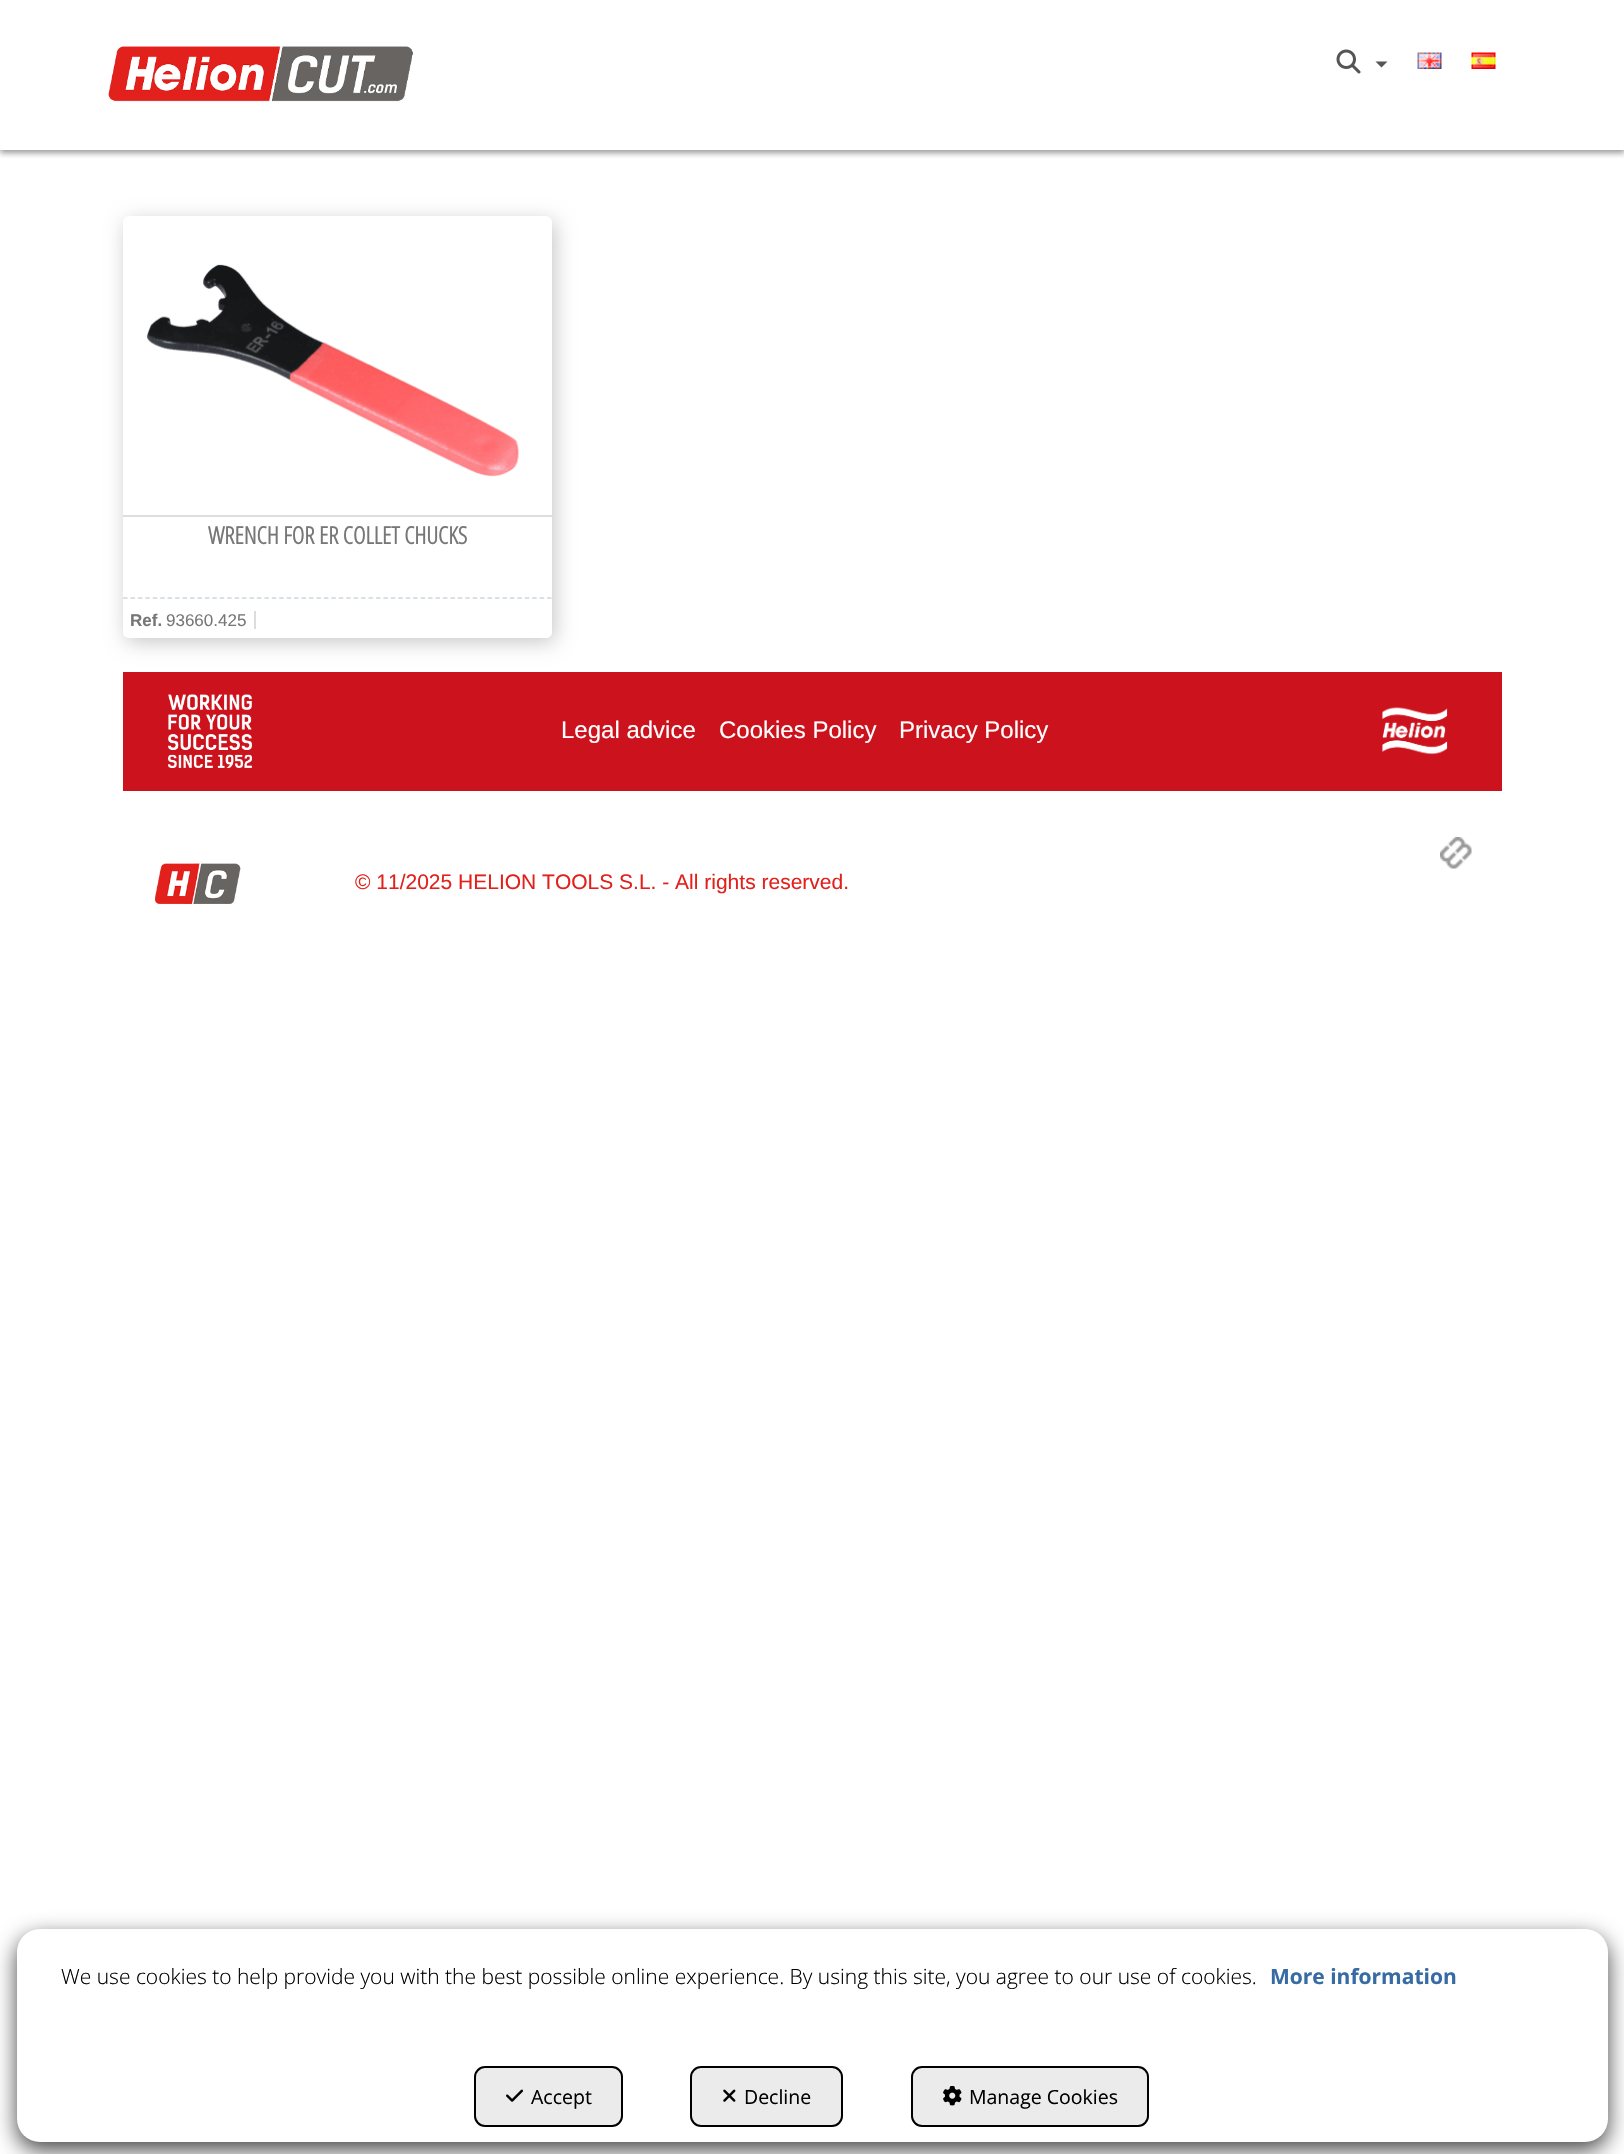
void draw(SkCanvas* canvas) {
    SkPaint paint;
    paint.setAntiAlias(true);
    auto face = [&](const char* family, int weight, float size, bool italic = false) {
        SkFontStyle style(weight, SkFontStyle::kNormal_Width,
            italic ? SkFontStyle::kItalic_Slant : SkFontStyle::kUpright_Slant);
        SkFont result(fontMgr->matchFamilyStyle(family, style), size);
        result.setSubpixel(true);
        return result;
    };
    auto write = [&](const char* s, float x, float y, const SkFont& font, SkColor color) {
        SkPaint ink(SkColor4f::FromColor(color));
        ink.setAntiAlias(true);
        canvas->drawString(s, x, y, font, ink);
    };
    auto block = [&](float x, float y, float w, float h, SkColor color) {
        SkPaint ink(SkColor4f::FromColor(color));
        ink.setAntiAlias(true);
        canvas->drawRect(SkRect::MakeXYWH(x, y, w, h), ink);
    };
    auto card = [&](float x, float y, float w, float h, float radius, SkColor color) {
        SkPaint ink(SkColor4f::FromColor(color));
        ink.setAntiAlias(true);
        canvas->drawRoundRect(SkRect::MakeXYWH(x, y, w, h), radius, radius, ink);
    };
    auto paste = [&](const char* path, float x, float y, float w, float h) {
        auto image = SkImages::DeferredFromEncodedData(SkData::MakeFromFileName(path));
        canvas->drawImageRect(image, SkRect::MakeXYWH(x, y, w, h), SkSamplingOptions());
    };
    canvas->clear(SK_ColorWHITE);
    canvas->save();
    canvas->clipRect(SkRect::MakeXYWH(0, 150, 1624, 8));
    paint.setColor(SkColorSetARGB(102, 0, 0, 0));
    paint.setMaskFilter(SkMaskFilter::MakeBlur(kNormal_SkBlurStyle, 3));
    canvas->drawRect(SkRect::MakeXYWH(0, 3, 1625, 150), paint);
    paint.setMaskFilter(nullptr);
    canvas->restore();
    paste("pic1.png", 108, 46, 305, 56);
    paste("pic2.png", 1336, 49, 25, 25);
    paint.setColor(SkColorSetRGB(85, 85, 85));
    canvas->drawPath(SkPathBuilder().moveTo(1375.5f, 61.5f).lineTo(1387.5f, 61.5f).lineTo(1381.5f, 67.5f).close().detach(), paint);
    paste("pic3.png", 1417, 52, 25, 17);
    paste("pic4.png", 1471, 52, 25, 17);
    paint.setColor(SkColorSetARGB(56, 0, 0, 0));
    paint.setMaskFilter(SkMaskFilter::MakeBlur(kNormal_SkBlurStyle, 10));
    canvas->drawRoundRect(SkRect::MakeXYWH(126, 221, 429, 421), 6, 6, paint);
    paint.setMaskFilter(nullptr);
    card(123, 216, 429, 422, 6, SK_ColorWHITE);
    block(123, 515, 429, 2, SkColorSetRGB(221, 221, 221));
    paste("pic5.png", 146, 264, 373, 213);
    paint.setColor(SK_ColorWHITE);
    canvas->drawPath(SkPathBuilder().moveTo(123, 524).lineTo(552, 524).lineTo(552, 632).cubicTo(552, 635.5f, 549.5f, 638, 546, 638).lineTo(129, 638).cubicTo(125.5f, 638, 123, 635.5f, 123, 632).close().detach(), paint);
    paint.setStyle(SkPaint::kStroke_Style);
    paint.setStrokeWidth(1.5f);
    paint.setColor(SkColorSetRGB(205, 216, 222));
    paint.setPathEffect(SkDashPathEffect::Make({{4.5f, 2.94f}}, 0));
    canvas->drawPath(SkPathBuilder().moveTo(123, 598).lineTo(552, 598).detach(), paint);
    paint.setPathEffect(nullptr);
    auto kFont1 = face("Open Sans Condensed", 700, 24);
    write("WRENCH FOR ER COLLET CHUCKS", 208, 544, kFont1, SkColorSetRGB(119, 119, 119));
    auto kFont2 = face("Liberation Sans", 700, 17);
    write("Ref.", 130, 626, kFont2, SkColorSetRGB(119, 119, 119));
    auto kFont3 = face("Liberation Sans", 400, 17);
    write("93660.425", 166, 626, kFont3, SkColorSetRGB(119, 119, 119));
    block(254, 611, 2, 18, SkColorSetRGB(221, 221, 221));
    block(123, 672, 1379, 119, SkColorSetRGB(204, 18, 29));
    paste("pic6.png", 168, 694, 84, 74);
    auto kFont4 = face("Liberation Sans", 400, 24);
    write("Legal advice", 561, 738, kFont4, SK_ColorWHITE);
    write("Cookies Policy", 719, 738, kFont4, SK_ColorWHITE);
    write("Privacy Policy", 899, 738, kFont4, SK_ColorWHITE);
    paste("pic7.png", 1382, 707, 66, 48);
    paste("pic8.png", 1440, 837, 32, 32);
    paste("pic9.png", 155, 863, 86, 41);
    auto kFont5 = face("Liberation Sans", 400, 21);
    write("© 11/2025 HELION TOOLS S.L. - All rights reserved.", 355, 889, kFont5, SkColorSetRGB(226, 33, 28));
    paint.setStyle(SkPaint::kFill_Style);
    paint.setColor(SkColorSetRGB(69, 69, 69));
    paint.setMaskFilter(SkMaskFilter::MakeBlur(kNormal_SkBlurStyle, 11));
    canvas->drawRoundRect(SkRect::MakeXYWH(17, 1937, 1591, 213), 23, 23, paint);
    paint.setMaskFilter(nullptr);
    card(17, 1929, 1591, 213, 23, SK_ColorWHITE);
    auto kFont6 = face("Open Sans", 300, 21);
    write("We use cookies to help provide you with the best possible online experience. By using this site, you agree to our use of cookies.", 61, 1984, kFont6, SK_ColorBLACK);
    auto kFont7 = face("Open Sans", 700, 21);
    write("More information", 1270, 1984, kFont7, SkColorSetRGB(55, 107, 163));
    paint.setColor(SkColorSetRGB(235, 235, 235));
    canvas->drawRoundRect(SkRect::MakeXYWH(475, 2067, 147, 59), 10, 10, paint);
    paint.setStyle(SkPaint::kStroke_Style);
    paint.setStrokeWidth(2);
    paint.setColor(SK_ColorBLACK);
    canvas->drawRoundRect(SkRect::MakeXYWH(475, 2067, 147, 59), 10, 10, paint);
    paste("pic10.png", 506, 2089, 17, 13);
    auto kFont8 = face("Open Sans", 400, 19.5f);
    write("Accept", 531, 2104, kFont8, SK_ColorBLACK);
    paint.setStyle(SkPaint::kFill_Style);
    paint.setColor(SkColorSetRGB(235, 235, 235));
    canvas->drawRoundRect(SkRect::MakeXYWH(691, 2067, 151, 59), 10, 10, paint);
    paint.setStyle(SkPaint::kStroke_Style);
    paint.setColor(SK_ColorBLACK);
    canvas->drawRoundRect(SkRect::MakeXYWH(691, 2067, 151, 59), 10, 10, paint);
    paste("pic11.png", 723, 2089, 13, 13);
    write("Decline", 744, 2104, kFont8, SK_ColorBLACK);
    paint.setStyle(SkPaint::kFill_Style);
    paint.setColor(SkColorSetRGB(235, 235, 235));
    canvas->drawRoundRect(SkRect::MakeXYWH(912, 2067, 236, 59), 10, 10, paint);
    paint.setStyle(SkPaint::kStroke_Style);
    paint.setColor(SK_ColorBLACK);
    canvas->drawRoundRect(SkRect::MakeXYWH(912, 2067, 236, 59), 10, 10, paint);
    paste("pic12.png", 943, 2085, 19, 21);
    write("Manage Cookies", 969, 2104, kFont8, SK_ColorBLACK);
}
